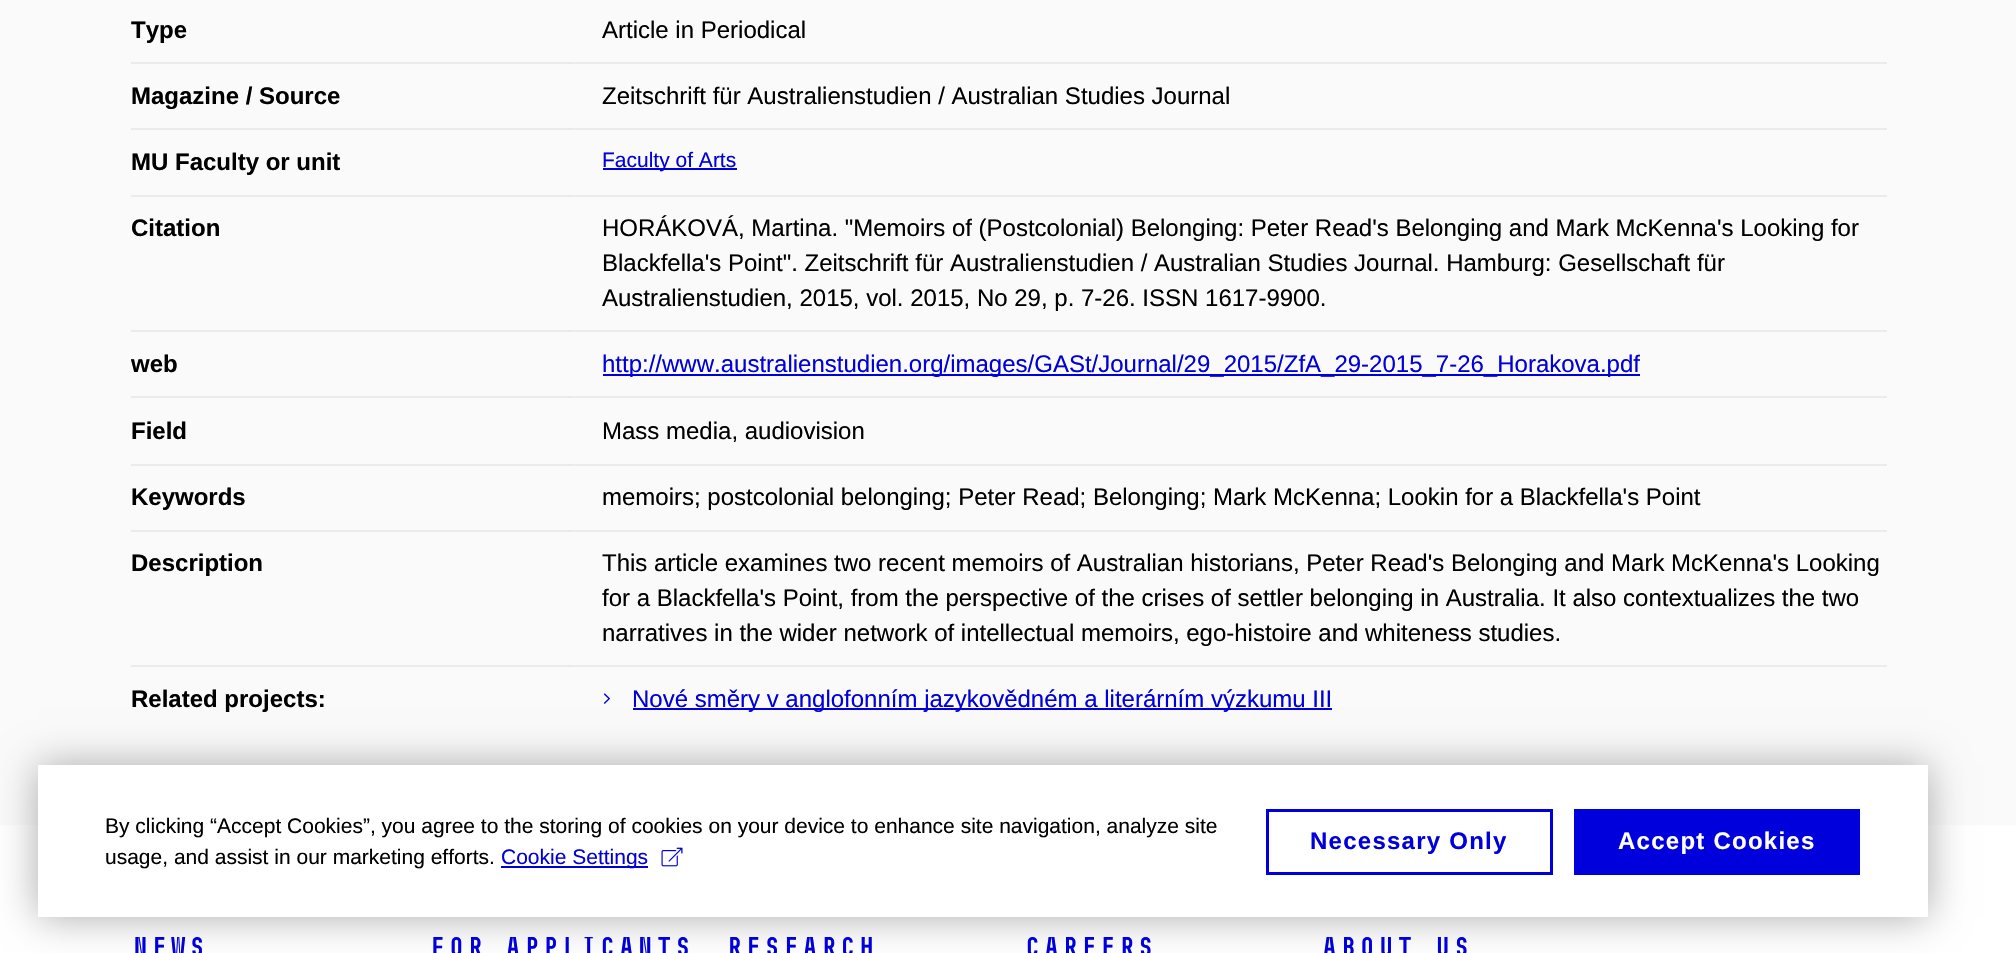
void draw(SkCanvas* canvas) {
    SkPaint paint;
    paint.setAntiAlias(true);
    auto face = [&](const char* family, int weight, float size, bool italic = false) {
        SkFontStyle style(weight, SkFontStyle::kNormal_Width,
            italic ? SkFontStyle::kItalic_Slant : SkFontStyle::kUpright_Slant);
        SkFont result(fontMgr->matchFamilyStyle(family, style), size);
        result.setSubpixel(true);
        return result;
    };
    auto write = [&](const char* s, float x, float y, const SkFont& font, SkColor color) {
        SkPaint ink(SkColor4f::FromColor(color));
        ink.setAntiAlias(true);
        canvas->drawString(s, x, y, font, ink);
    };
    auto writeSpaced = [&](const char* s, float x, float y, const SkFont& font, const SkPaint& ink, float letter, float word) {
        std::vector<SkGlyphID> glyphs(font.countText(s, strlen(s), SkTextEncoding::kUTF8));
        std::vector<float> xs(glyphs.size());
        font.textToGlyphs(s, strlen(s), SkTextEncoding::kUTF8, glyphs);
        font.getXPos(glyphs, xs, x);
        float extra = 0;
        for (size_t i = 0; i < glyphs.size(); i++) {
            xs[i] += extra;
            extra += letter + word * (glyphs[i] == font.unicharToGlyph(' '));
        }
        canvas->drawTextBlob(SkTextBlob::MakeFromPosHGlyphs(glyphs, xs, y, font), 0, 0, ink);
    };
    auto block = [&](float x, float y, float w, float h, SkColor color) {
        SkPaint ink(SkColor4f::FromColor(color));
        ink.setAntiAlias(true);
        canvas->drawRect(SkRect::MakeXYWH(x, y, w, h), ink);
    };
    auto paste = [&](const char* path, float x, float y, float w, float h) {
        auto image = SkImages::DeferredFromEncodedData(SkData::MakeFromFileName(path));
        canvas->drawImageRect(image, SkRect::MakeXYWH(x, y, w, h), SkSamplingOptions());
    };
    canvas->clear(SkColorSetRGB(250, 250, 250));
    block(131, 62, 1756, 2, SkColorSetRGB(235, 235, 235));
    block(131, 128, 1756, 2, SkColorSetRGB(235, 235, 235));
    block(131, 195, 1756, 2, SkColorSetRGB(235, 235, 235));
    block(131, 330, 1756, 2, SkColorSetRGB(235, 235, 235));
    block(131, 396, 1756, 2, SkColorSetRGB(235, 235, 235));
    block(131, 464, 1756, 2, SkColorSetRGB(235, 235, 235));
    block(131, 530, 1756, 2, SkColorSetRGB(235, 235, 235));
    block(131, 665, 1756, 2, SkColorSetRGB(235, 235, 235));
    auto kFont1 = face("Liberation Sans", 700, 24);
    write("Type", 131, 38, kFont1, SK_ColorBLACK);
    block(569, 62, 1, 2, SkColorSetRGB(227, 227, 227));
    auto kFont2 = face("Liberation Sans", 400, 24);
    write("Article in Periodical", 602, 38, kFont2, SK_ColorBLACK);
    write("Magazine / Source", 131, 104, kFont1, SK_ColorBLACK);
    block(569, 128, 1, 2, SkColorSetRGB(227, 227, 227));
    write("Zeitschrift für Australienstudien / Australian Studies Journal", 602, 104, kFont2, SK_ColorBLACK);
    write("MU Faculty or unit", 131, 170, kFont1, SK_ColorBLACK);
    block(569, 195, 1, 2, SkColorSetRGB(227, 227, 227));
    block(603, 168, 134, 2, SkColorSetRGB(0, 0, 220));
    auto kFont3 = face("Liberation Sans", 400, 21);
    write("Faculty of Arts", 602, 167, kFont3, SkColorSetRGB(0, 0, 220));
    write("Citation", 131, 236, kFont1, SK_ColorBLACK);
    block(569, 330, 1, 2, SkColorSetRGB(227, 227, 227));
    write("HORÁKOVÁ, Martina. \"Memoirs of (Postcolonial) Belonging: Peter Read's Belonging and Mark McKenna's Looking for", 602, 236, kFont2, SK_ColorBLACK);
    write("Blackfella's Point\". Zeitschrift für Australienstudien / Australian Studies Journal. Hamburg: Gesellschaft für", 602, 271, kFont2, SK_ColorBLACK);
    write("Australienstudien, 2015, vol. 2015, No 29, p. 7-26. ISSN 1617-9900.", 602, 306, kFont2, SK_ColorBLACK);
    write("web", 131, 372, kFont1, SK_ColorBLACK);
    block(569, 396, 1, 2, SkColorSetRGB(227, 227, 227));
    block(603, 374, 1037, 2, SkColorSetRGB(0, 0, 220));
    write("http://www.australienstudien.org/images/GASt/Journal/29_2015/ZfA_29-2015_7-26_Horakova.pdf", 602, 372, kFont2, SkColorSetRGB(0, 0, 220));
    write("Field", 131, 439, kFont1, SK_ColorBLACK);
    block(569, 464, 1, 2, SkColorSetRGB(227, 227, 227));
    write("Mass media, audiovision", 602, 439, kFont2, SK_ColorBLACK);
    write("Keywords", 131, 505, kFont1, SK_ColorBLACK);
    block(569, 530, 1, 2, SkColorSetRGB(227, 227, 227));
    write("memoirs; postcolonial belonging; Peter Read; Belonging; Mark McKenna; Lookin for a Blackfella's Point", 602, 505, kFont2, SK_ColorBLACK);
    write("Description", 131, 571, kFont1, SK_ColorBLACK);
    block(569, 665, 1, 2, SkColorSetRGB(227, 227, 227));
    write("This article examines two recent memoirs of Australian historians, Peter Read's Belonging and Mark McKenna's Looking", 602, 571, kFont2, SK_ColorBLACK);
    write("for a Blackfella's Point, from the perspective of the crises of settler belonging in Australia. It also contextualizes the two", 602, 606, kFont2, SK_ColorBLACK);
    write("narratives in the wider network of intellectual memoirs, ego-histoire and whiteness studies.", 602, 641, kFont2, SK_ColorBLACK);
    write("Related projects:", 131, 707, kFont1, SK_ColorBLACK);
    paste("pic1.png", 603, 693, 7, 11);
    block(633, 708, 699, 2, SkColorSetRGB(0, 0, 220));
    write("Nové směry v anglofonním jazykovědném a literárním výzkumu III", 632, 707, kFont2, SkColorSetRGB(0, 0, 220));
    block(0, 825, 2016, 128, SK_ColorWHITE);
    paint.setColor(SkColorSetRGB(170, 170, 170));
    paint.setMaskFilter(SkMaskFilter::MakeBlur(kNormal_SkBlurStyle, 19));
    canvas->drawRect(SkRect::MakeXYWH(38, 765, 1890, 152), paint);
    paint.setMaskFilter(nullptr);
    block(38, 765, 1890, 152, SK_ColorWHITE);
    write("By clicking “Accept Cookies”, you agree to the storing of cookies on your device to enhance site navigation, analyze site", 105, 833, kFont3, SK_ColorBLACK);
    write("usage, and assist in our marketing efforts.", 105, 864, kFont3, SK_ColorBLACK);
    block(501, 866, 147, 2, SkColorSetRGB(0, 0, 220));
    write("Cookie Settings", 501, 864, kFont3, SkColorSetRGB(0, 0, 220));
    paste("pic2.png", 661, 847, 22, 20);
    paint.setStyle(SkPaint::kStroke_Style);
    paint.setStrokeWidth(3);
    paint.setColor(SkColorSetRGB(0, 0, 220));
    canvas->drawRect(SkRect::MakeXYWH(1267.5f, 810.5f, 284, 63), paint);
    paint.setStyle(SkPaint::kFill_Style);
    writeSpaced("Necessary Only", 1310, 849, kFont1, paint, 1.25f, 0);
    block(1574, 809, 286, 66, SkColorSetRGB(0, 0, 220));
    paint.setColor(SK_ColorWHITE);
    writeSpaced("Accept Cookies", 1618, 849, kFont1, paint, 1.25f, 0);
    auto kFont4 = face("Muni", 700, 27);
    write("News", 131, 956, kFont4, SkColorSetRGB(0, 0, 220));
    write("For applicants", 428, 956, kFont4, SkColorSetRGB(0, 0, 220));
    write("Research", 725, 956, kFont4, SkColorSetRGB(0, 0, 220));
    write("Careers", 1023, 956, kFont4, SkColorSetRGB(0, 0, 220));
    write("About us", 1320, 956, kFont4, SkColorSetRGB(0, 0, 220));
}
